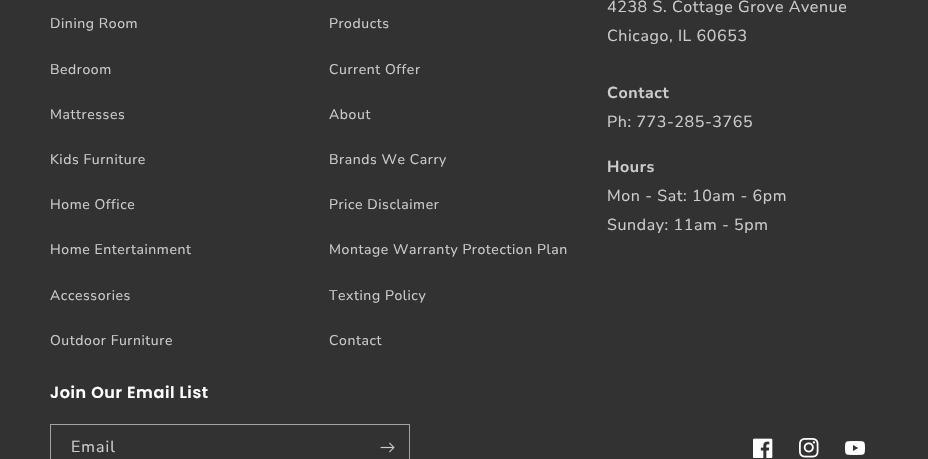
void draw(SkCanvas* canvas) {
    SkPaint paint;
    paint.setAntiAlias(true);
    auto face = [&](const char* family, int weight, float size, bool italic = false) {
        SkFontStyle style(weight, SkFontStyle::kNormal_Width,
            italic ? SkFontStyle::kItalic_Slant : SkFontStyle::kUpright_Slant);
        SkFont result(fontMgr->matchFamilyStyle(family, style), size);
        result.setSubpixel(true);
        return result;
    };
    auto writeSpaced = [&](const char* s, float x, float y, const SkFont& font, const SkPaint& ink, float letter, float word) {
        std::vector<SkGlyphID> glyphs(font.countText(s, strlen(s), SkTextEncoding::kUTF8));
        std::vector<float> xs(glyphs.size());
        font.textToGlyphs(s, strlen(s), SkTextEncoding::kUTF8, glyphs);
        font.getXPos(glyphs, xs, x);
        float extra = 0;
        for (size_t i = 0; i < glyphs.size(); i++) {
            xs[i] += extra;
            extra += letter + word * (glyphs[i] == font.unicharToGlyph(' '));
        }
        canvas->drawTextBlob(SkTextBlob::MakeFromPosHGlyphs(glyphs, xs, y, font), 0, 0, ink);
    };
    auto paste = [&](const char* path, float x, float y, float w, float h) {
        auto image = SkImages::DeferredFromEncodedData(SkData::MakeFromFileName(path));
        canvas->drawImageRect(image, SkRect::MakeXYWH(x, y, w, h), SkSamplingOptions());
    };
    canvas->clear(SkColorSetRGB(51, 50, 50));
    auto kFont1 = face("Nunito Sans", 400, 14);
    paint.setColor(SkColorSetRGB(204, 204, 204));
    writeSpaced("Dining Room", 50, 28, kFont1, paint, 0.6f, 0);
    writeSpaced("Bedroom", 50, 74, kFont1, paint, 0.6f, 0);
    writeSpaced("Mattresses", 50, 119, kFont1, paint, 0.6f, 0);
    writeSpaced("Kids Furniture", 50, 164, kFont1, paint, 0.6f, 0);
    writeSpaced("Home Office", 50, 209, kFont1, paint, 0.6f, 0);
    writeSpaced("Home Entertainment", 50, 254, kFont1, paint, 0.6f, 0);
    writeSpaced("Accessories", 50, 300, kFont1, paint, 0.6f, 0);
    writeSpaced("Outdoor Furniture", 50, 345, kFont1, paint, 0.6f, 0);
    writeSpaced("Products", 329, 28, kFont1, paint, 0.6f, 0);
    writeSpaced("Current Offer", 329, 74, kFont1, paint, 0.6f, 0);
    writeSpaced("About", 329, 119, kFont1, paint, 0.6f, 0);
    writeSpaced("Brands We Carry", 329, 164, kFont1, paint, 0.6f, 0);
    writeSpaced("Price Disclaimer", 329, 209, kFont1, paint, 0.6f, 0);
    writeSpaced("Montage Warranty Protection Plan", 329, 254, kFont1, paint, 0.6f, 0);
    writeSpaced("Texting Policy", 329, 300, kFont1, paint, 0.6f, 0);
    writeSpaced("Contact", 329, 345, kFont1, paint, 0.6f, 0);
    auto kFont2 = face("Nunito Sans", 400, 16);
    writeSpaced("4238 S. Cottage Grove Avenue", 607, 12, kFont2, paint, 0.6f, 0);
    writeSpaced("Chicago, IL 60653", 607, 41, kFont2, paint, 0.6f, 0);
    auto kFont3 = face("Nunito Sans", 700, 16);
    writeSpaced("Contact", 607, 98, kFont3, paint, 0.6f, 0);
    writeSpaced("Ph: 773-285-3765", 607, 127, kFont2, paint, 0.6f, 0);
    writeSpaced("Hours", 607, 172, kFont3, paint, 0.6f, 0);
    writeSpaced("Mon - Sat: 10am - 6pm", 607, 201, kFont2, paint, 0.6f, 0);
    writeSpaced("Sunday: 11am - 5pm", 607, 230, kFont2, paint, 0.6f, 0);
    auto kFont4 = face("Poppins", 600, 16);
    paint.setColor(SK_ColorWHITE);
    writeSpaced("Join Our Email List", 50, 398, kFont4, paint, 0.6f, 0);
    paint.setStyle(SkPaint::kStroke_Style);
    paint.setStrokeWidth(1);
    paint.setColor(SkColorSetRGB(163, 163, 163));
    canvas->drawRect(SkRect::MakeXYWH(50.5f, 424.5f, 359, 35), paint);
    paint.setStyle(SkPaint::kFill_Style);
    paint.setColor(SkColorSetRGB(204, 204, 204));
    writeSpaced("Email", 71, 452, kFont2, paint, 1, 0);
    paste("pic1.png", 380, 442, 15, 11);
    paste("pic2.png", 753, 438, 20, 20);
    paste("pic3.png", 799, 438, 20, 20);
    paste("pic4.png", 845, 441, 20, 14);
}
